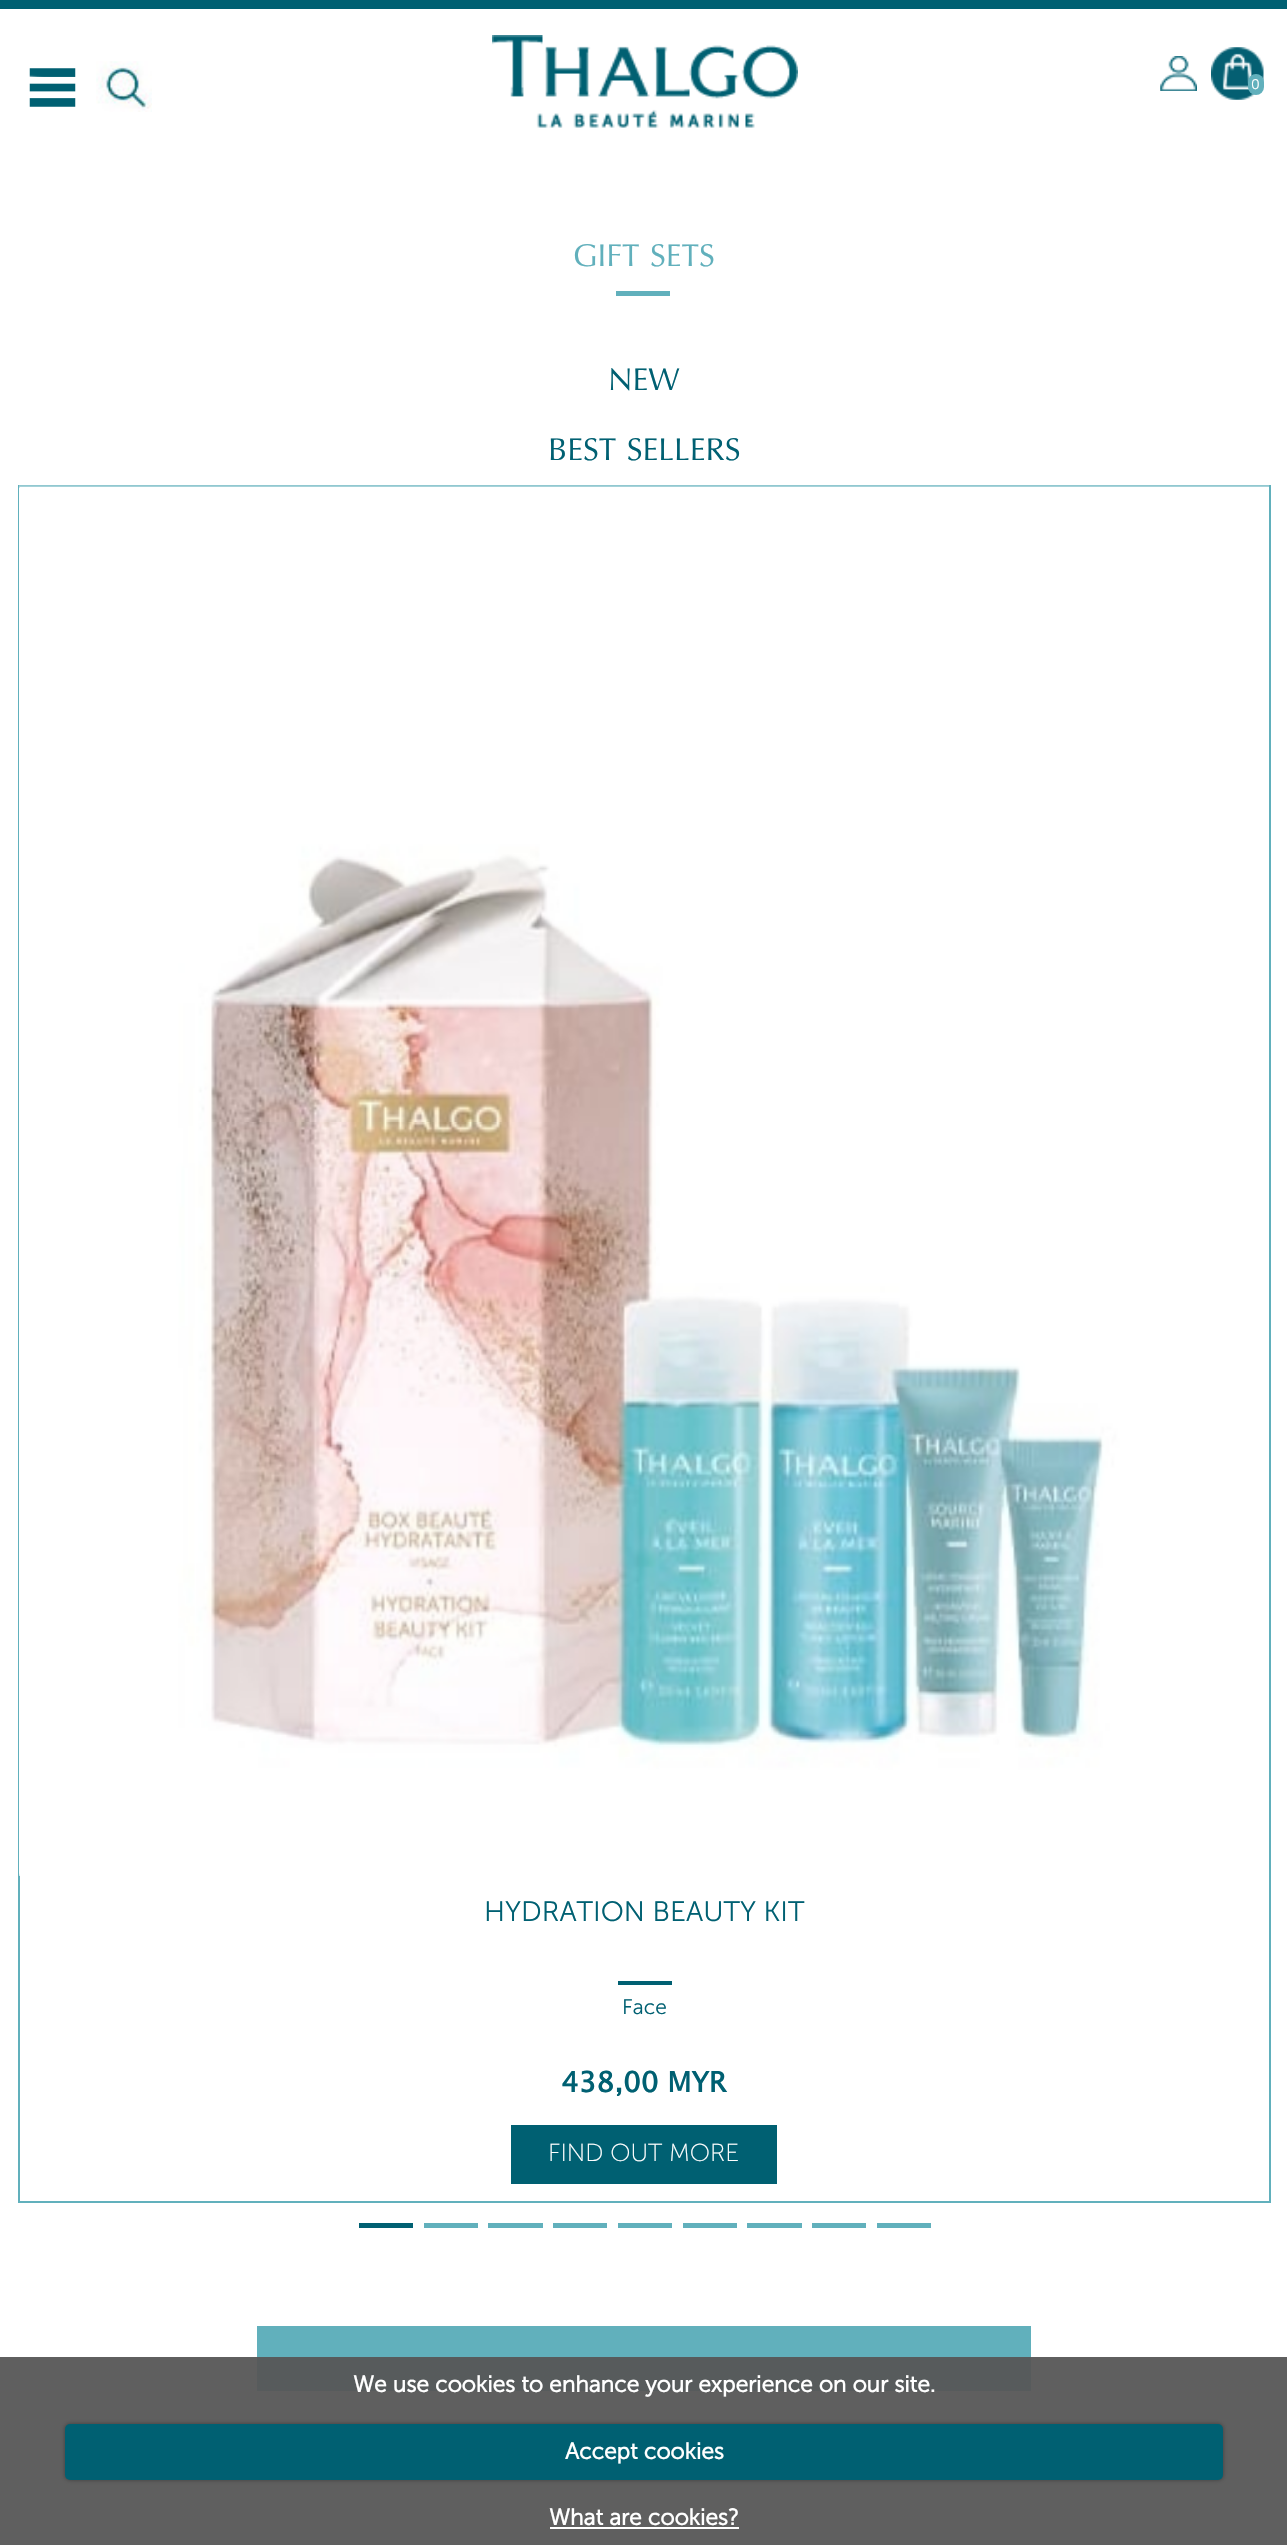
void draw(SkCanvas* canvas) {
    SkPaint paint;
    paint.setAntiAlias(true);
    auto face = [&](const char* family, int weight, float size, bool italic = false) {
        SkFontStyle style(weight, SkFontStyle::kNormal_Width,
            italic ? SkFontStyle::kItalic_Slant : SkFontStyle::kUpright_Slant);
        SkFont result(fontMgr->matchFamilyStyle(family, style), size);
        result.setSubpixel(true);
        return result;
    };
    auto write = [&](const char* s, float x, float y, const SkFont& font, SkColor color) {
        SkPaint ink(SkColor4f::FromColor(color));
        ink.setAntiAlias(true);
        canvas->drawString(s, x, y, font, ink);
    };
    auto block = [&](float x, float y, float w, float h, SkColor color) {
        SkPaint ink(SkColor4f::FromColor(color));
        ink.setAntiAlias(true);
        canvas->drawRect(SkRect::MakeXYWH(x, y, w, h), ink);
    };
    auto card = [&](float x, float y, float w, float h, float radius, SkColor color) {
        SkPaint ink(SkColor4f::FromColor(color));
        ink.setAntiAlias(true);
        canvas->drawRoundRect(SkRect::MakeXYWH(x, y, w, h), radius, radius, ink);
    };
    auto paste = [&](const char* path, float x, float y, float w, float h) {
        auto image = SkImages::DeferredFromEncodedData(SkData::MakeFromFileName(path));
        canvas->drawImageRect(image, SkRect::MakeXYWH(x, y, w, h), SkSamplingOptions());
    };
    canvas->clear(SK_ColorWHITE);
    block(0, 0, 1287, 9, SkColorSetRGB(0, 96, 114));
    paste("pic1.png", 29, 68, 47, 39);
    paste("pic2.png", 96, 61, 56, 51);
    paste("pic3.png", 492, 35, 306, 93);
    paste("pic4.png", 1160, 56, 37, 35);
    paste("pic5.png", 1211, 47, 53, 53);
    card(1248, 74, 16, 21, 8, SkColorSetRGB(97, 176, 188));
    auto kFont1 = face("Museo Sans", 300, 14);
    write("0", 1251, 89, kFont1, SK_ColorWHITE);
    auto kFont2 = face("Optima", 400, 31.5f);
    write("GIFT SETS", 573, 266, kFont2, SkColorSetRGB(97, 176, 188));
    block(616, 291, 54, 5, SkColorSetRGB(97, 176, 188));
    write("NEW", 608, 390, kFont2, SkColorSetRGB(0, 96, 114));
    write("BEST SELLERS", 548, 460, kFont2, SkColorSetRGB(0, 96, 114));
    paint.setStyle(SkPaint::kStroke_Style);
    paint.setStrokeWidth(2);
    paint.setColor(SkColorSetRGB(97, 176, 188));
    canvas->drawRect(SkRect::MakeXYWH(19, 486, 1251, 1716), paint);
    paste("pic6.png", 19, 485, 1250, 1391);
    auto kFont3 = face("Museo Sans", 300, 28);
    write("HYDRATION BEAUTY KIT", 484, 1921, kFont3, SkColorSetRGB(0, 96, 114));
    block(618, 1981, 54, 4, SkColorSetRGB(0, 96, 114));
    auto kFont4 = face("Museo Sans", 300, 21);
    write("Face", 622, 2014, kFont4, SkColorSetRGB(0, 96, 114));
    auto kFont5 = face("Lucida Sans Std", 700, 28);
    write("438,00 MYR", 561, 2092, kFont5, SkColorSetRGB(0, 96, 114));
    block(511, 2125, 266, 59, SkColorSetRGB(0, 96, 114));
    auto kFont6 = face("Museo Sans", 200, 24.5f);
    write("FIND OUT MORE", 548, 2161, kFont6, SK_ColorWHITE);
    block(359, 2223, 54, 5, SkColorSetRGB(0, 96, 114));
    block(424, 2223, 54, 5, SkColorSetRGB(97, 176, 188));
    block(488, 2223, 55, 5, SkColorSetRGB(97, 176, 188));
    block(553, 2223, 54, 5, SkColorSetRGB(97, 176, 188));
    block(618, 2223, 54, 5, SkColorSetRGB(97, 176, 188));
    block(683, 2223, 54, 5, SkColorSetRGB(97, 176, 188));
    block(747, 2223, 55, 5, SkColorSetRGB(97, 176, 188));
    block(812, 2223, 54, 5, SkColorSetRGB(97, 176, 188));
    block(877, 2223, 54, 5, SkColorSetRGB(97, 176, 188));
    block(257, 2326, 774, 65, SkColorSetRGB(97, 176, 188));
    block(0, 2357, 1287, 188, SkColorSetARGB(242, 86, 86, 86));
    auto kFont7 = face("Museo Sans", 700, 22.75f);
    write("We use cookies to enhance your experience on our site.", 353, 2392, kFont7, SK_ColorWHITE);
    paint.setStyle(SkPaint::kFill_Style);
    paint.setColor(SkColorSetARGB(89, 0, 0, 0));
    paint.setMaskFilter(SkMaskFilter::MakeBlur(kNormal_SkBlurStyle, 2));
    canvas->drawRoundRect(SkRect::MakeXYWH(65, 2424, 1158, 56), 5, 5, paint);
    paint.setMaskFilter(nullptr);
    card(65, 2424, 1158, 56, 5, SkColorSetRGB(0, 96, 114));
    write("Accept cookies", 565, 2459, kFont7, SK_ColorWHITE);
    write("What are cookies?", 549, 2525, kFont7, SK_ColorWHITE);
    block(550, 2527, 189, 2, SK_ColorWHITE);
}
